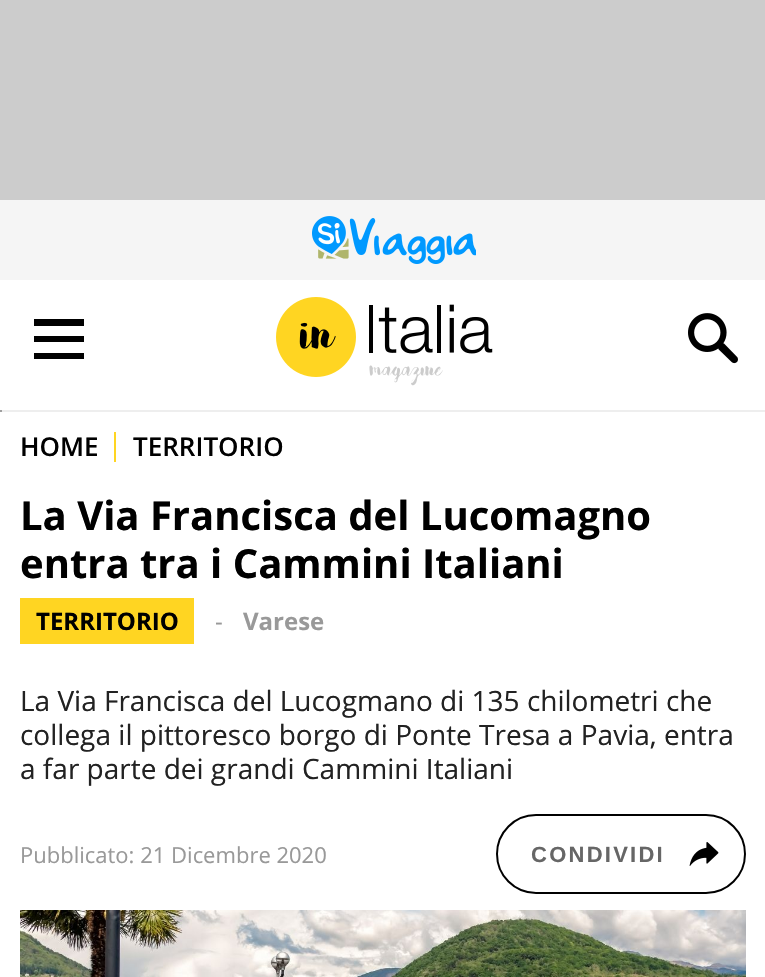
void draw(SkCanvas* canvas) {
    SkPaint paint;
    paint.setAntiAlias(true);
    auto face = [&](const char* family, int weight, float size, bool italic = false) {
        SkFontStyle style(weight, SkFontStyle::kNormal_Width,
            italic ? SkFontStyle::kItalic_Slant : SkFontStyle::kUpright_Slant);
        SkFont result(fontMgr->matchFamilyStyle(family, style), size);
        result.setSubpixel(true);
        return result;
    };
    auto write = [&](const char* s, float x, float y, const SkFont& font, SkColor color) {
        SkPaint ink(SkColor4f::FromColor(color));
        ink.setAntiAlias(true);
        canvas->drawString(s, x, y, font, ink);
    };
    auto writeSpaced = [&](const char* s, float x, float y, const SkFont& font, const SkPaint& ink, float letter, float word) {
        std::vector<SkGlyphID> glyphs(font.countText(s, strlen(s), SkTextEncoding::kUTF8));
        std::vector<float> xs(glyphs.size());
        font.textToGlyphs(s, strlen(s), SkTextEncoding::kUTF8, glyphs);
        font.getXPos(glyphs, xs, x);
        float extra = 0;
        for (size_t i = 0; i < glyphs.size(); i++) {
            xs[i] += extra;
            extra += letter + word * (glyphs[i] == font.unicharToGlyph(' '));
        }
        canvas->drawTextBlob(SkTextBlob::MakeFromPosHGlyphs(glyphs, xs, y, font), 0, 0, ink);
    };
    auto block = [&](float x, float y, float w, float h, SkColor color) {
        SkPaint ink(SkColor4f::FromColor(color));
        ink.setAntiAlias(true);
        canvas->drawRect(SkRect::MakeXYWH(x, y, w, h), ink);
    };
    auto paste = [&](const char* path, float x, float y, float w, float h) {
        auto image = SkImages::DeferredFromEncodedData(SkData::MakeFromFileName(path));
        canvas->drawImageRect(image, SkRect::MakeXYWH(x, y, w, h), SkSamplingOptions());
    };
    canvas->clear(SkColorSetRGB(204, 204, 204));
    block(0, 280, 765, 697, SK_ColorWHITE);
    block(0, 200, 765, 80, SkColorSetRGB(245, 245, 245));
    paste("pic1.png", 312, 216, 164, 48);
    paint.setColor(SK_ColorBLACK);
    canvas->drawPath(SkPathBuilder().moveTo(34, 319).lineTo(34, 326).lineTo(84, 326).lineTo(84, 319).close().moveTo(34, 342).lineTo(84, 342).lineTo(84, 336).lineTo(34, 336).close().moveTo(34, 359).lineTo(84, 359).lineTo(84, 353).lineTo(34, 353).close().detach(), paint);
    paste("pic2.png", 276, 297, 217, 89);
    paste("pic3.png", 688, 313, 50, 51);
    block(0, 410, 765, 2, SkColorSetRGB(238, 238, 238));
    block(0, 410, 2, 2, SkColorSetRGB(159, 159, 159));
    auto kFont1 = face("Open Sans", 600, 26);
    write("HOME", 20, 456, kFont1, SK_ColorBLACK);
    block(114, 432, 2, 30, SkColorSetRGB(255, 213, 34));
    write("TERRITORIO", 133, 456, kFont1, SK_ColorBLACK);
    auto kFont2 = face("Open Sans", 700, 40);
    write("La Via Francisca del Lucomagno", 20, 530, kFont2, SK_ColorBLACK);
    write("entra tra i Cammini Italiani", 20, 578, kFont2, SK_ColorBLACK);
    block(20, 598, 174, 46, SkColorSetRGB(255, 213, 34));
    auto kFont3 = face("Open Sans", 700, 24);
    write("TERRITORIO", 36, 630, kFont3, SK_ColorBLACK);
    auto kFont4 = face("Open Sans", 400, 24);
    write("-", 215, 630, kFont4, SkColorSetRGB(153, 153, 153));
    write("Varese", 243, 630, kFont3, SkColorSetRGB(153, 153, 153));
    auto kFont5 = face("Open Sans", 400, 28);
    write("La Via Francisca del Lucogmano di 135 chilometri che", 20, 711, kFont5, SkColorSetRGB(34, 34, 34));
    write("collega il pittoresco borgo di Ponte Tresa a Pavia, entra", 20, 745, kFont5, SkColorSetRGB(34, 34, 34));
    write("a far parte dei grandi Cammini Italiani", 20, 779, kFont5, SkColorSetRGB(34, 34, 34));
    auto kFont6 = face("Open Sans", 400, 22);
    write("Pubblicato: 21 Dicembre 2020", 20, 863, kFont6, SkColorSetRGB(153, 153, 153));
    paint.setStyle(SkPaint::kStroke_Style);
    paint.setStrokeWidth(2);
    canvas->drawRoundRect(SkRect::MakeXYWH(497, 815, 248, 78), 39, 39, paint);
    auto kFont7 = face("Liberation Sans", 700, 22);
    paint.setStyle(SkPaint::kFill_Style);
    paint.setColor(SkColorSetRGB(102, 102, 102));
    writeSpaced("CONDIVIDI", 531, 862, kFont7, paint, 2.25f, 0);
    paste("pic4.png", 689, 842, 30, 24);
    paste("pic5.png", 20, 910, 726, 67);
}
